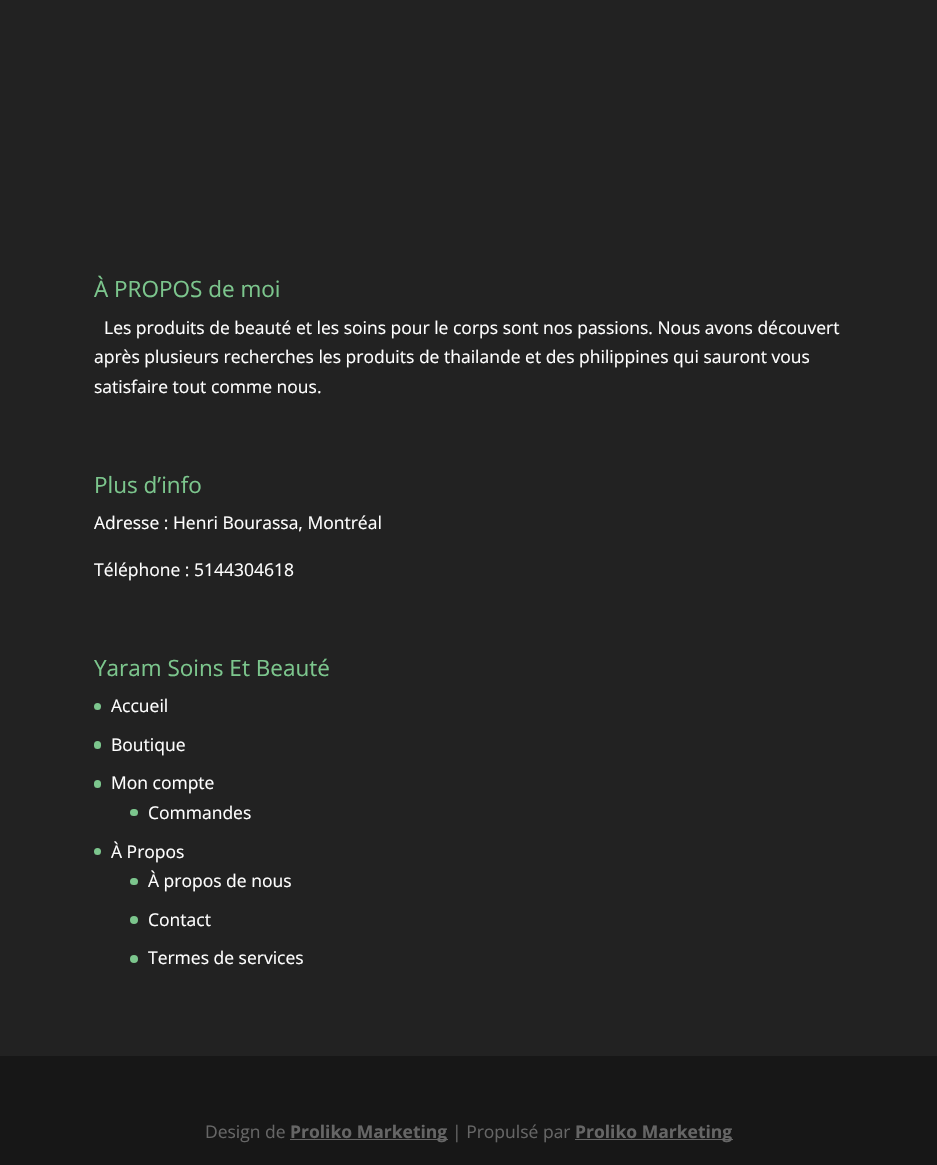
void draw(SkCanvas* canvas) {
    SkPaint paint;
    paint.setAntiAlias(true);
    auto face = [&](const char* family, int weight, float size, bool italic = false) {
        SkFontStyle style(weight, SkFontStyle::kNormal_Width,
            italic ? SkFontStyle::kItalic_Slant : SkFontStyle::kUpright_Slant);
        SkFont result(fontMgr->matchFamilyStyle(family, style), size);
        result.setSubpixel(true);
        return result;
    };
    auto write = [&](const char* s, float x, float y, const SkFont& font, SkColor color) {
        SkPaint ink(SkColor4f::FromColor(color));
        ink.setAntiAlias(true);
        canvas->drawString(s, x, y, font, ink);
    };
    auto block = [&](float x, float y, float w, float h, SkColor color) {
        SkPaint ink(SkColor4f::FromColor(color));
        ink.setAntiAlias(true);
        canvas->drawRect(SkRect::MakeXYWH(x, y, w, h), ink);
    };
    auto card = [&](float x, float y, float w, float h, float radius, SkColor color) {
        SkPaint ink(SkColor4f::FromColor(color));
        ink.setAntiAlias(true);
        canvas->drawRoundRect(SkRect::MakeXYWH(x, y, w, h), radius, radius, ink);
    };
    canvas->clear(SkColorSetRGB(34, 34, 34));
    auto kFont1 = face("Open Sans", 400, 22.5f);
    write("À PROPOS de moi", 94, 297, kFont1, SkColorSetRGB(124, 198, 141));
    auto kFont2 = face("Open Sans", 400, 17.5f);
    write("Les produits de beauté et les soins pour le corps sont nos passions. Nous avons découvert", 104, 334, kFont2, SK_ColorWHITE);
    write("après plusieurs recherches les produits de thailande et des philippines qui sauront vous", 94, 363, kFont2, SK_ColorWHITE);
    write("satisfaire tout comme nous.", 94, 393, kFont2, SK_ColorWHITE);
    write("Plus d’info", 94, 493, kFont1, SkColorSetRGB(124, 198, 141));
    write("Adresse : Henri Bourassa, Montréal", 94, 529, kFont2, SK_ColorWHITE);
    write("Téléphone : 5144304618", 94, 576, kFont2, SK_ColorWHITE);
    write("Yaram Soins Et Beauté", 94, 676, kFont1, SkColorSetRGB(124, 198, 141));
    paint.setColor(SkColorSetRGB(124, 198, 141));
    canvas->drawCircle(97.5f, 706.5f, 3.5f, paint);
    write("Accueil", 111, 712, kFont2, SK_ColorWHITE);
    card(94, 741, 7, 8, 3.5f, SkColorSetRGB(124, 198, 141));
    write("Boutique", 111, 751, kFont2, SK_ColorWHITE);
    card(94, 780, 7, 8, 3.5f, SkColorSetRGB(124, 198, 141));
    write("Mon compte", 111, 789, kFont2, SK_ColorWHITE);
    card(130, 809, 8, 7, 3.5f, SkColorSetRGB(124, 198, 141));
    write("Commandes", 148, 819, kFont2, SK_ColorWHITE);
    canvas->drawCircle(97.5f, 851.5f, 3.5f, paint);
    write("À Propos", 111, 858, kFont2, SK_ColorWHITE);
    card(130, 878, 8, 7, 3.5f, SkColorSetRGB(124, 198, 141));
    write("À propos de nous", 148, 887, kFont2, SK_ColorWHITE);
    canvas->drawCircle(134, 920, 4, paint);
    write("Contact", 148, 926, kFont2, SK_ColorWHITE);
    canvas->drawCircle(134, 959, 4, paint);
    write("Termes de services", 148, 964, kFont2, SK_ColorWHITE);
    block(0, 1056, 937, 109, SkColorSetRGB(23, 23, 23));
    write("Design de", 205, 1138, kFont2, SkColorSetRGB(102, 102, 102));
    block(290, 1139, 158, 1, SkColorSetRGB(102, 102, 102));
    auto kFont3 = face("Open Sans", 700, 17.5f);
    write("Proliko Marketing", 290, 1138, kFont3, SkColorSetRGB(102, 102, 102));
    write("| Propulsé par", 452, 1138, kFont2, SkColorSetRGB(102, 102, 102));
    block(575, 1139, 158, 1, SkColorSetRGB(102, 102, 102));
    write("Proliko Marketing", 575, 1138, kFont3, SkColorSetRGB(102, 102, 102));
}
